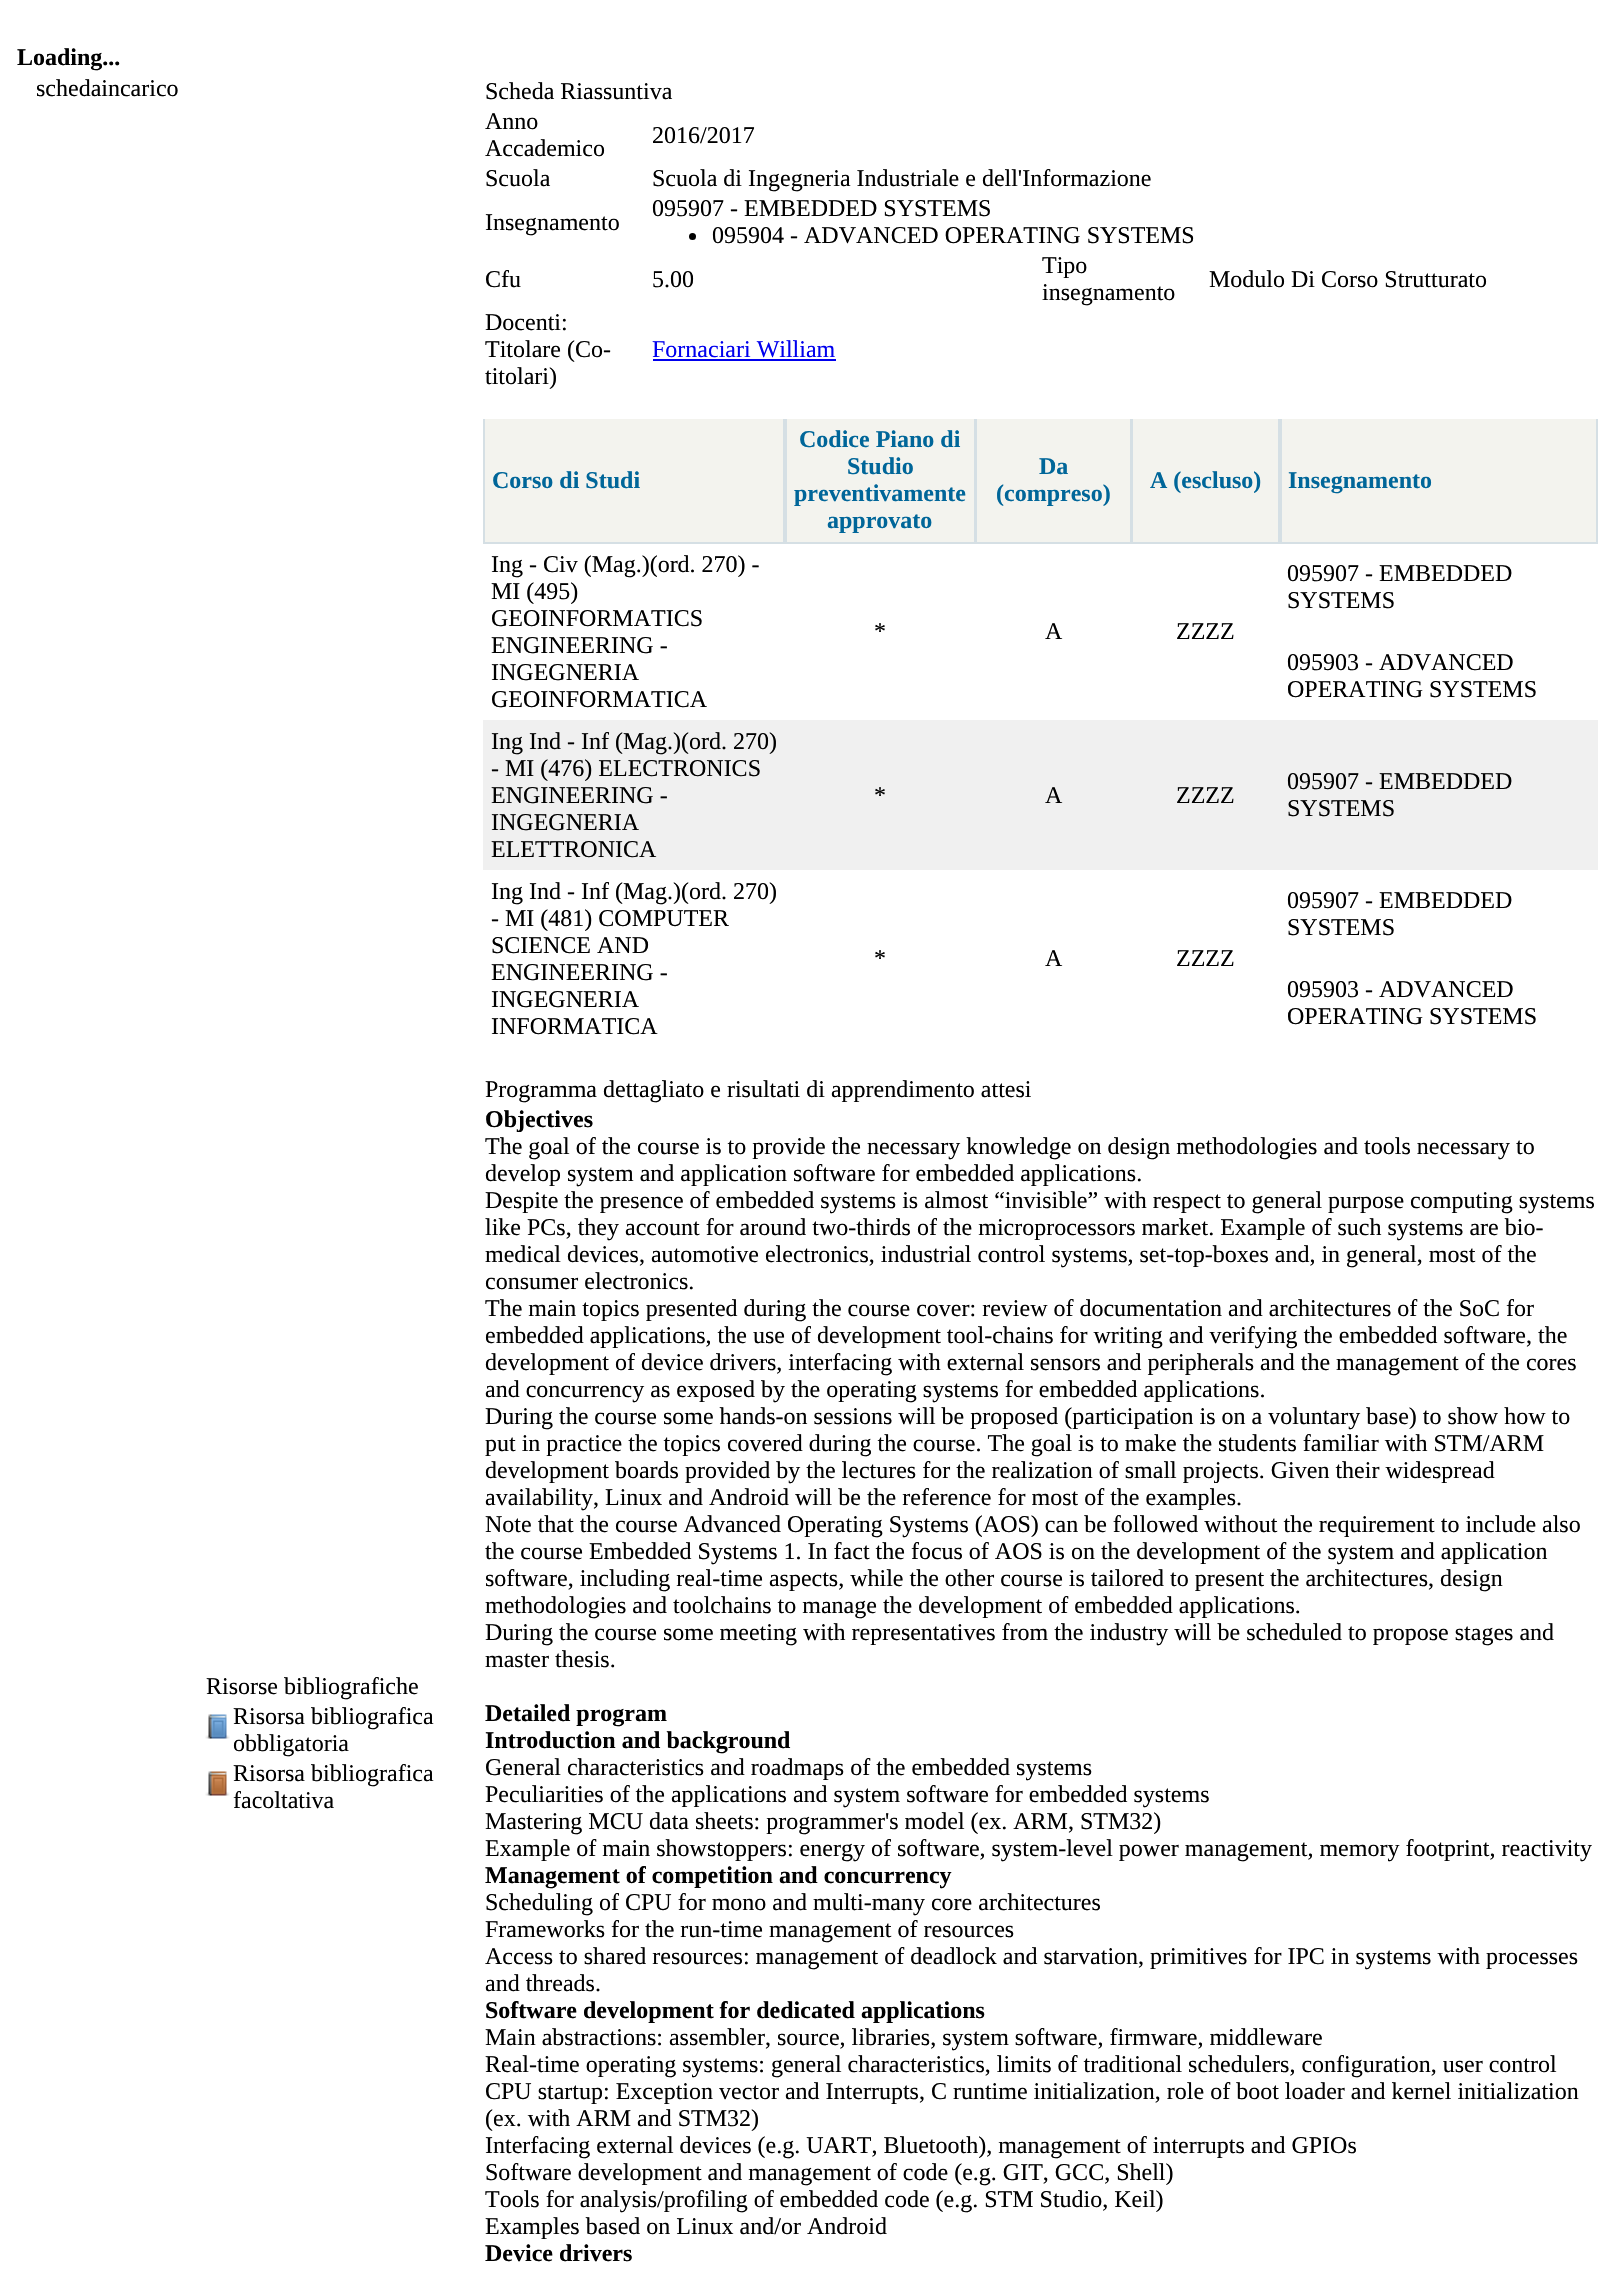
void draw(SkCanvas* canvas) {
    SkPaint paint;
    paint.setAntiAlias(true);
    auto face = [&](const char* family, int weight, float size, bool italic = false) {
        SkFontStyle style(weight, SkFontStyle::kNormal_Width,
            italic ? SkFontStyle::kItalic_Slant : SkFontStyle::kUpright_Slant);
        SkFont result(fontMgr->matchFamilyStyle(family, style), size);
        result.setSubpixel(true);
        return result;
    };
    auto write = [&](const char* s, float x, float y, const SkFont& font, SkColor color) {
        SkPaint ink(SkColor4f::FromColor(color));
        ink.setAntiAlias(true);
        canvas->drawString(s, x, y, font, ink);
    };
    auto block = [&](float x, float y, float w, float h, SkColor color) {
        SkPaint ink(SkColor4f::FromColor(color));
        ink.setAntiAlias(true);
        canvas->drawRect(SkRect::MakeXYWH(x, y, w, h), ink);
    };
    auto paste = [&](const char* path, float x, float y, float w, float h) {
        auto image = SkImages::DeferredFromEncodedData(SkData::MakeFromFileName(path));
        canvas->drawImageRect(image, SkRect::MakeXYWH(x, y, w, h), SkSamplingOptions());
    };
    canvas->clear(SK_ColorWHITE);
    auto kFont1 = face("Liberation Serif", 700, 24);
    write("Loading...", 17, 65, kFont1, SK_ColorBLACK);
    auto kFont2 = face("Liberation Serif", 400, 24);
    write("schedaincarico", 36, 96, kFont2, SK_ColorBLACK);
    write("Risorse bibliografiche", 206, 1694, kFont2, SK_ColorBLACK);
    paste("pic1.png", 205, 1714, 25, 25);
    write("Risorsa bibliografica", 233, 1724, kFont2, SK_ColorBLACK);
    write("obbligatoria", 233, 1751, kFont2, SK_ColorBLACK);
    paste("pic2.png", 205, 1771, 25, 25);
    write("Risorsa bibliografica", 233, 1781, kFont2, SK_ColorBLACK);
    write("facoltativa", 233, 1808, kFont2, SK_ColorBLACK);
    write("Scheda Riassuntiva", 485, 99, kFont2, SK_ColorBLACK);
    write("Anno", 485, 129, kFont2, SK_ColorBLACK);
    write("Accademico", 485, 156, kFont2, SK_ColorBLACK);
    write("2016/2017", 652, 143, kFont2, SK_ColorBLACK);
    write("Scuola", 485, 186, kFont2, SK_ColorBLACK);
    write("Scuola di Ingegneria Industriale e dell'Informazione", 652, 186, kFont2, SK_ColorBLACK);
    write("Insegnamento", 485, 230, kFont2, SK_ColorBLACK);
    write("095907 - EMBEDDED SYSTEMS", 652, 216, kFont2, SK_ColorBLACK);
    paint.setColor(SK_ColorBLACK);
    canvas->drawCircle(692.5f, 236.5f, 3.5f, paint);
    write("095904 - ADVANCED OPERATING SYSTEMS", 712, 243, kFont2, SK_ColorBLACK);
    write("Cfu", 485, 287, kFont2, SK_ColorBLACK);
    write("5.00", 652, 287, kFont2, SK_ColorBLACK);
    write("Tipo", 1042, 273, kFont2, SK_ColorBLACK);
    write("insegnamento", 1042, 300, kFont2, SK_ColorBLACK);
    write("Modulo Di Corso Strutturato", 1209, 287, kFont2, SK_ColorBLACK);
    write("Docenti:", 485, 330, kFont2, SK_ColorBLACK);
    write("Titolare (Co-", 485, 357, kFont2, SK_ColorBLACK);
    write("titolari)", 485, 384, kFont2, SK_ColorBLACK);
    write("Fornaciari William", 652, 357, kFont2, SkColorSetRGB(0, 0, 238));
    block(653, 359, 183, 2, SkColorSetRGB(0, 0, 238));
    block(485, 419, 298, 123, SkColorSetRGB(243, 243, 238));
    block(783, 419, 2, 124, SkColorSetRGB(213, 223, 228));
    block(483, 542, 302, 2, SkColorSetRGB(213, 223, 228));
    block(483, 419, 2, 124, SkColorSetRGB(213, 223, 228));
    write("Corso di Studi", 492, 488, kFont1, SkColorSetRGB(0, 102, 153));
    block(787, 419, 187, 123, SkColorSetRGB(243, 243, 238));
    block(974, 419, 1, 124, SkColorSetRGB(213, 223, 228));
    block(785, 542, 190, 2, SkColorSetRGB(213, 223, 228));
    block(785, 419, 2, 124, SkColorSetRGB(213, 223, 228));
    write("Codice Piano di", 799, 447, kFont1, SkColorSetRGB(0, 102, 153));
    write("Studio", 847, 474, kFont1, SkColorSetRGB(0, 102, 153));
    write("preventivamente", 794, 501, kFont1, SkColorSetRGB(0, 102, 153));
    write("approvato", 827, 528, kFont1, SkColorSetRGB(0, 102, 153));
    block(977, 419, 153, 123, SkColorSetRGB(243, 243, 238));
    block(1130, 419, 1, 124, SkColorSetRGB(213, 223, 228));
    block(975, 542, 156, 2, SkColorSetRGB(213, 223, 228));
    block(975, 419, 2, 124, SkColorSetRGB(213, 223, 228));
    write("Da", 1039, 474, kFont1, SkColorSetRGB(0, 102, 153));
    write("(compreso)", 996, 501, kFont1, SkColorSetRGB(0, 102, 153));
    block(1133, 419, 145, 123, SkColorSetRGB(243, 243, 238));
    block(1278, 419, 2, 124, SkColorSetRGB(213, 223, 228));
    block(1131, 542, 149, 2, SkColorSetRGB(213, 223, 228));
    block(1131, 419, 2, 124, SkColorSetRGB(213, 223, 228));
    write("A (escluso)", 1150, 488, kFont1, SkColorSetRGB(0, 102, 153));
    block(1282, 419, 314, 123, SkColorSetRGB(243, 243, 238));
    block(1596, 419, 2, 124, SkColorSetRGB(213, 223, 228));
    block(1280, 542, 318, 2, SkColorSetRGB(213, 223, 228));
    block(1280, 419, 2, 124, SkColorSetRGB(213, 223, 228));
    write("Insegnamento", 1288, 488, kFont1, SkColorSetRGB(0, 102, 153));
    write("Ing - Civ (Mag.)(ord. 270) -", 491, 572, kFont2, SK_ColorBLACK);
    write("MI (495)", 491, 599, kFont2, SK_ColorBLACK);
    write("GEOINFORMATICS", 491, 626, kFont2, SK_ColorBLACK);
    write("ENGINEERING -", 491, 653, kFont2, SK_ColorBLACK);
    write("INGEGNERIA", 491, 680, kFont2, SK_ColorBLACK);
    write("GEOINFORMATICA", 491, 707, kFont2, SK_ColorBLACK);
    write("095907 - EMBEDDED", 1287, 581, kFont2, SK_ColorBLACK);
    write("SYSTEMS", 1287, 608, kFont2, SK_ColorBLACK);
    write("*", 874, 639, kFont2, SK_ColorBLACK);
    write("A", 1045, 639, kFont2, SK_ColorBLACK);
    write("ZZZZ", 1176, 639, kFont2, SK_ColorBLACK);
    write("095903 - ADVANCED", 1287, 670, kFont2, SK_ColorBLACK);
    write("OPERATING SYSTEMS", 1287, 697, kFont2, SK_ColorBLACK);
    block(483, 720, 1115, 150, SkColorSetRGB(240, 240, 240));
    write("Ing Ind - Inf (Mag.)(ord. 270)", 491, 749, kFont2, SK_ColorBLACK);
    write("- MI (476) ELECTRONICS", 491, 776, kFont2, SK_ColorBLACK);
    write("ENGINEERING -", 491, 803, kFont2, SK_ColorBLACK);
    write("INGEGNERIA", 491, 830, kFont2, SK_ColorBLACK);
    write("ELETTRONICA", 491, 857, kFont2, SK_ColorBLACK);
    write("*", 874, 803, kFont2, SK_ColorBLACK);
    write("A", 1045, 803, kFont2, SK_ColorBLACK);
    write("ZZZZ", 1176, 803, kFont2, SK_ColorBLACK);
    write("095907 - EMBEDDED", 1287, 789, kFont2, SK_ColorBLACK);
    write("SYSTEMS", 1287, 816, kFont2, SK_ColorBLACK);
    write("Ing Ind - Inf (Mag.)(ord. 270)", 491, 899, kFont2, SK_ColorBLACK);
    write("- MI (481) COMPUTER", 491, 926, kFont2, SK_ColorBLACK);
    write("SCIENCE AND", 491, 953, kFont2, SK_ColorBLACK);
    write("ENGINEERING -", 491, 980, kFont2, SK_ColorBLACK);
    write("INGEGNERIA", 491, 1007, kFont2, SK_ColorBLACK);
    write("INFORMATICA", 491, 1034, kFont2, SK_ColorBLACK);
    write("095907 - EMBEDDED", 1287, 908, kFont2, SK_ColorBLACK);
    write("SYSTEMS", 1287, 935, kFont2, SK_ColorBLACK);
    write("*", 874, 966, kFont2, SK_ColorBLACK);
    write("A", 1045, 966, kFont2, SK_ColorBLACK);
    write("ZZZZ", 1176, 966, kFont2, SK_ColorBLACK);
    write("095903 - ADVANCED", 1287, 997, kFont2, SK_ColorBLACK);
    write("OPERATING SYSTEMS", 1287, 1024, kFont2, SK_ColorBLACK);
    write("Programma dettagliato e risultati di apprendimento attesi", 485, 1097, kFont2, SK_ColorBLACK);
    write("Objectives", 485, 1127, kFont1, SK_ColorBLACK);
    write("The goal of the course is to provide the necessary knowledge on design methodologies and tools necessary to", 485, 1154, kFont2, SK_ColorBLACK);
    write("develop system and application software for embedded applications.", 485, 1181, kFont2, SK_ColorBLACK);
    write("Despite the presence of embedded systems is almost “invisible” with respect to general purpose computing systems", 485, 1208, kFont2, SK_ColorBLACK);
    write("like PCs, they account for around two-thirds of the microprocessors market. Example of such systems are bio-", 485, 1235, kFont2, SK_ColorBLACK);
    write("medical devices, automotive electronics, industrial control systems, set-top-boxes and, in general, most of the", 485, 1262, kFont2, SK_ColorBLACK);
    write("consumer electronics.", 485, 1289, kFont2, SK_ColorBLACK);
    write("The main topics presented during the course cover: review of documentation and architectures of the SoC for", 485, 1316, kFont2, SK_ColorBLACK);
    write("embedded applications, the use of development tool-chains for writing and verifying the embedded software, the", 485, 1343, kFont2, SK_ColorBLACK);
    write("development of device drivers, interfacing with external sensors and peripherals and the management of the cores", 485, 1370, kFont2, SK_ColorBLACK);
    write("and concurrency as exposed by the operating systems for embedded applications.", 485, 1397, kFont2, SK_ColorBLACK);
    write("During the course some hands-on sessions will be proposed (participation is on a voluntary base) to show how to", 485, 1424, kFont2, SK_ColorBLACK);
    write("put in practice the topics covered during the course. The goal is to make the students familiar with STM/ARM", 485, 1451, kFont2, SK_ColorBLACK);
    write("development boards provided by the lectures for the realization of small projects. Given their widespread", 485, 1478, kFont2, SK_ColorBLACK);
    write("availability, Linux and Android will be the reference for most of the examples.", 485, 1505, kFont2, SK_ColorBLACK);
    write("Note that the course Advanced Operating Systems (AOS) can be followed without the requirement to include also", 485, 1532, kFont2, SK_ColorBLACK);
    write("the course Embedded Systems 1. In fact the focus of AOS is on the development of the system and application", 485, 1559, kFont2, SK_ColorBLACK);
    write("software, including real-time aspects, while the other course is tailored to present the architectures, design", 485, 1586, kFont2, SK_ColorBLACK);
    write("methodologies and toolchains to manage the development of embedded applications.", 485, 1613, kFont2, SK_ColorBLACK);
    write("During the course some meeting with representatives from the industry will be scheduled to propose stages and", 485, 1640, kFont2, SK_ColorBLACK);
    write("master thesis.", 485, 1667, kFont2, SK_ColorBLACK);
    write("Detailed program", 485, 1721, kFont1, SK_ColorBLACK);
    write("Introduction and background", 485, 1748, kFont1, SK_ColorBLACK);
    write("General characteristics and roadmaps of the embedded systems", 485, 1775, kFont2, SK_ColorBLACK);
    write("Peculiarities of the applications and system software for embedded systems", 485, 1802, kFont2, SK_ColorBLACK);
    write("Mastering MCU data sheets: programmer's model (ex. ARM, STM32)", 485, 1829, kFont2, SK_ColorBLACK);
    write("Example of main showstoppers: energy of software, system-level power management, memory footprint, reactivity", 485, 1856, kFont2, SK_ColorBLACK);
    write("Management of competition and concurrency", 485, 1883, kFont1, SK_ColorBLACK);
    write("Scheduling of CPU for mono and multi-many core architectures", 485, 1910, kFont2, SK_ColorBLACK);
    write("Frameworks for the run-time management of resources", 485, 1937, kFont2, SK_ColorBLACK);
    write("Access to shared resources: management of deadlock and starvation, primitives for IPC in systems with processes", 485, 1964, kFont2, SK_ColorBLACK);
    write("and threads.", 485, 1991, kFont2, SK_ColorBLACK);
    write("Software development for dedicated applications", 485, 2018, kFont1, SK_ColorBLACK);
    write("Main abstractions: assembler, source, libraries, system software, firmware, middleware", 485, 2045, kFont2, SK_ColorBLACK);
    write("Real-time operating systems: general characteristics, limits of traditional schedulers, configuration, user control", 485, 2072, kFont2, SK_ColorBLACK);
    write("CPU startup: Exception vector and Interrupts, C runtime initialization, role of boot loader and kernel initialization", 485, 2099, kFont2, SK_ColorBLACK);
    write("(ex. with ARM and STM32)", 485, 2126, kFont2, SK_ColorBLACK);
    write("Interfacing external devices (e.g. UART, Bluetooth), management of interrupts and GPIOs", 485, 2153, kFont2, SK_ColorBLACK);
    write("Software development and management of code (e.g. GIT, GCC, Shell)", 485, 2180, kFont2, SK_ColorBLACK);
    write("Tools for analysis/profiling of embedded code (e.g. STM Studio, Keil)", 485, 2207, kFont2, SK_ColorBLACK);
    write("Examples based on Linux and/or Android", 485, 2234, kFont2, SK_ColorBLACK);
    write("Device drivers", 485, 2261, kFont1, SK_ColorBLACK);
}
